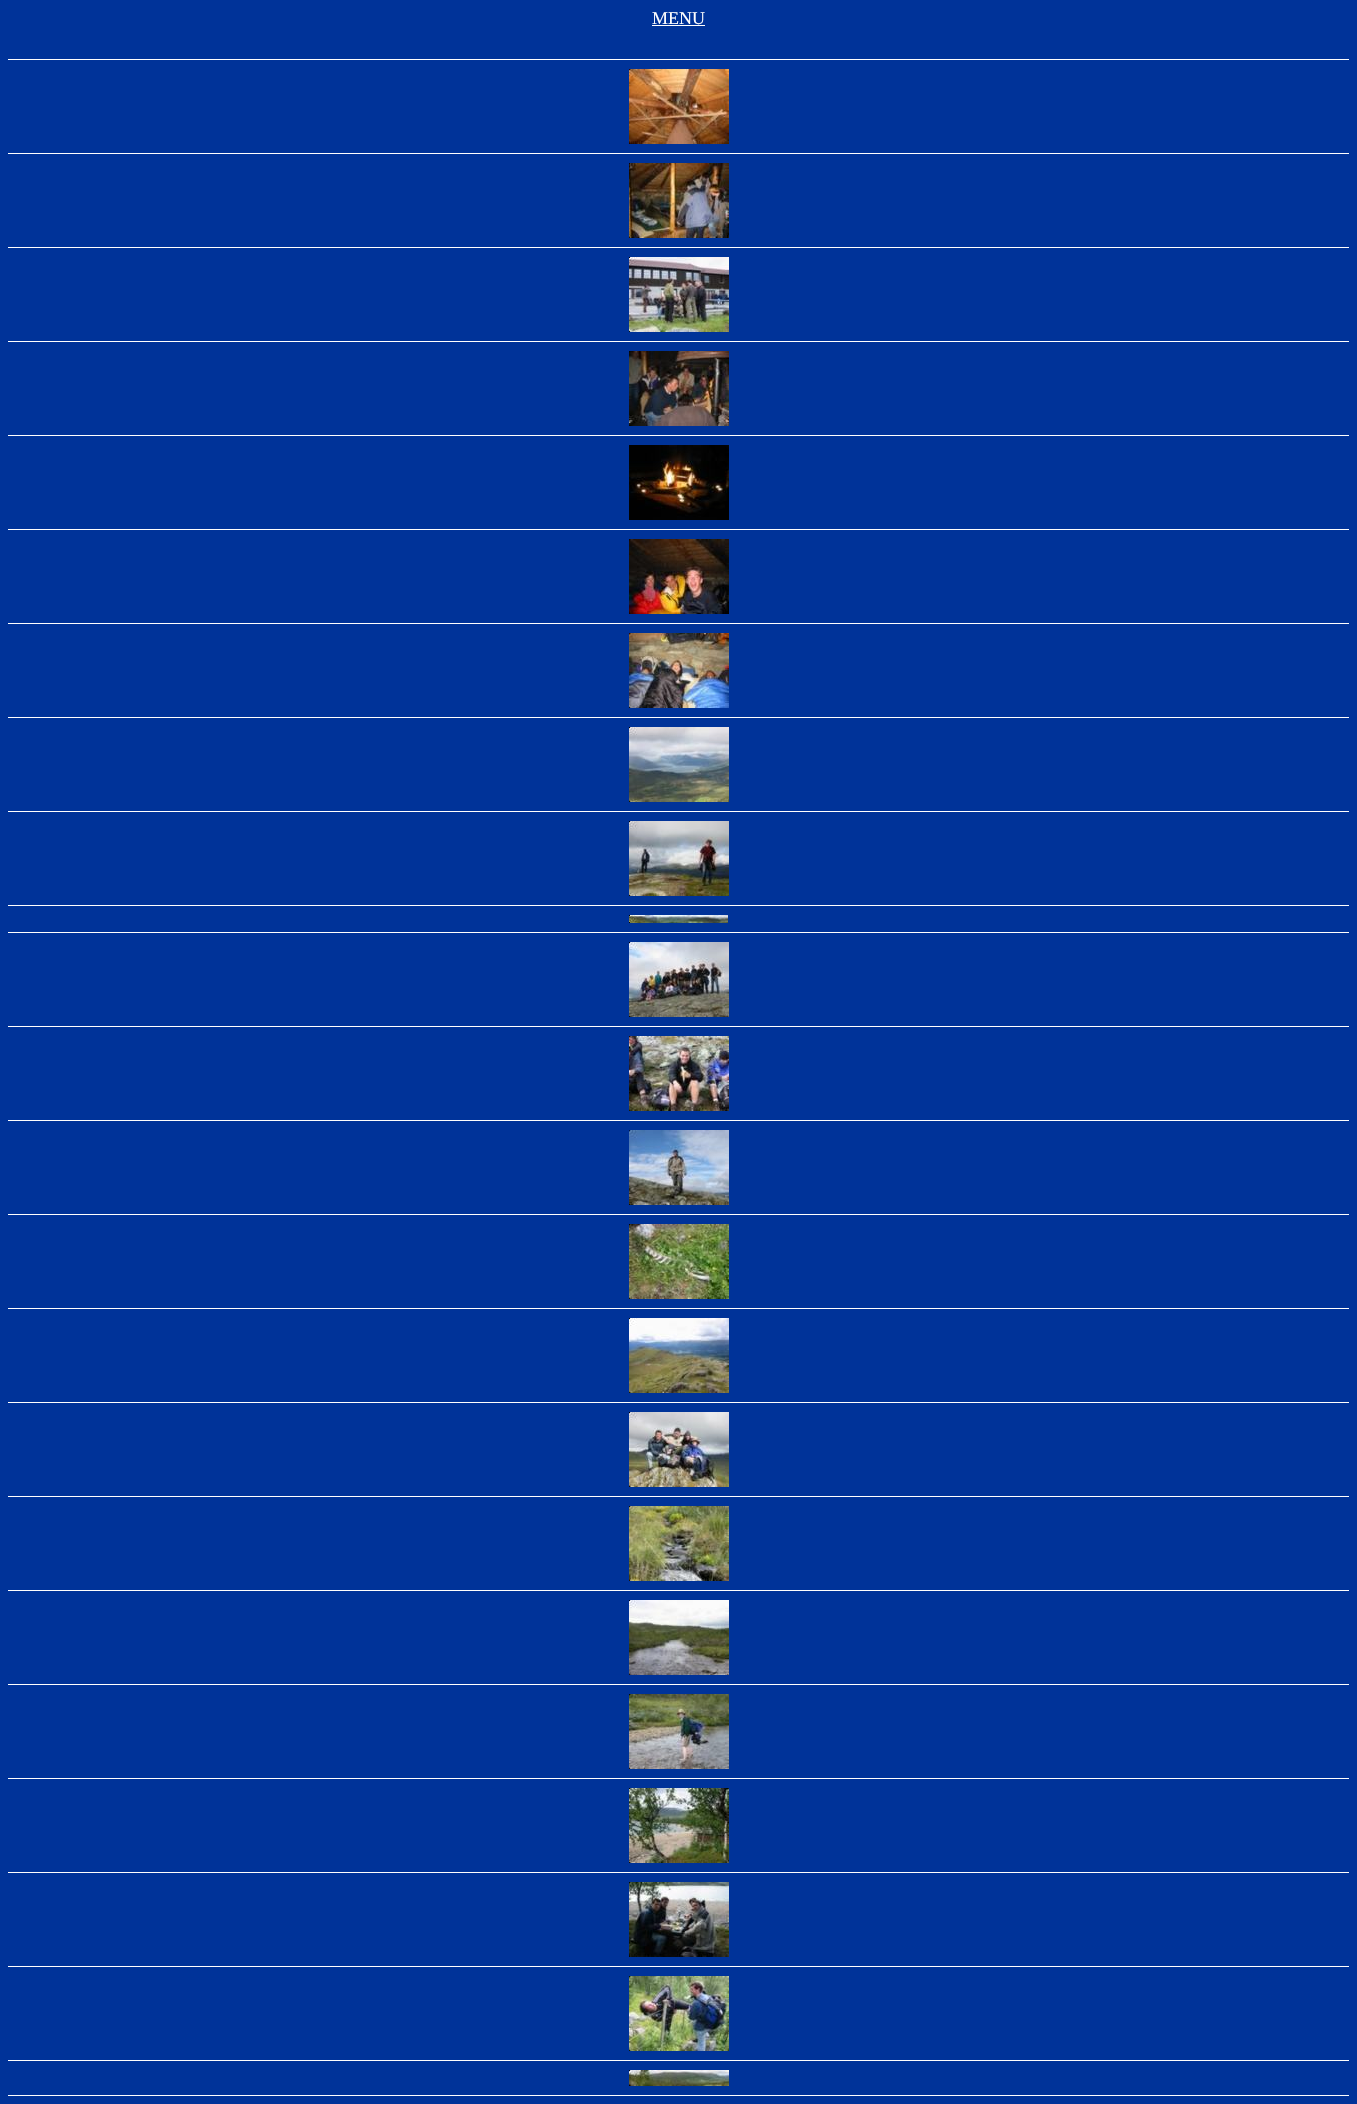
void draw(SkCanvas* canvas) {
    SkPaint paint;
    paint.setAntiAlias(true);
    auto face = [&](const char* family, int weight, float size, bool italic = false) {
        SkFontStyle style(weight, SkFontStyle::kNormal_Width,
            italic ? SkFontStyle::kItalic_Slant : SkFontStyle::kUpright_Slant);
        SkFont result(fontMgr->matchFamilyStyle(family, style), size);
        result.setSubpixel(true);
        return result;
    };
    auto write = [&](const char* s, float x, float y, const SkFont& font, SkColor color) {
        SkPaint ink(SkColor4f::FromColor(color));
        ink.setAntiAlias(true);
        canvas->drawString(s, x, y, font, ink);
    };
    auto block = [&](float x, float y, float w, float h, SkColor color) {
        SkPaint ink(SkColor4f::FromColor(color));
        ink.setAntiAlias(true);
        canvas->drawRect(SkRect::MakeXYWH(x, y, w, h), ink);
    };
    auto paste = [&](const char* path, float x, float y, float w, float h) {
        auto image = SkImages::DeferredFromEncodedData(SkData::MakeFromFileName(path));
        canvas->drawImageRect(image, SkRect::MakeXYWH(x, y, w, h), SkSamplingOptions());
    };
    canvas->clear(SkColorSetRGB(0, 51, 153));
    auto kFont1 = face("Liberation Serif", 400, 18);
    write("MENU", 652, 24, kFont1, SK_ColorWHITE);
    block(652, 25, 53, 1, SK_ColorWHITE);
    block(8, 59, 1341, 1, SK_ColorWHITE);
    paste("pic1.png", 629, 69, 100, 75);
    block(8, 153, 1341, 1, SK_ColorWHITE);
    paste("pic2.png", 629, 163, 100, 75);
    block(8, 247, 1341, 1, SK_ColorWHITE);
    paste("pic3.png", 629, 257, 100, 75);
    block(8, 341, 1341, 1, SK_ColorWHITE);
    paste("pic4.png", 629, 351, 100, 75);
    block(8, 435, 1341, 1, SK_ColorWHITE);
    paste("pic5.png", 629, 445, 100, 75);
    block(8, 529, 1341, 1, SK_ColorWHITE);
    paste("pic6.png", 629, 539, 100, 75);
    block(8, 623, 1341, 1, SK_ColorWHITE);
    paste("pic7.png", 629, 633, 100, 75);
    block(8, 717, 1341, 1, SK_ColorWHITE);
    paste("pic8.png", 629, 727, 100, 75);
    block(8, 811, 1341, 1, SK_ColorWHITE);
    paste("pic9.png", 629, 821, 100, 75);
    block(8, 905, 1341, 1, SK_ColorWHITE);
    paste("pic10.png", 629, 915, 99, 8);
    block(8, 932, 1341, 1, SK_ColorWHITE);
    paste("pic11.png", 629, 942, 100, 75);
    block(8, 1026, 1341, 1, SK_ColorWHITE);
    paste("pic12.png", 629, 1036, 100, 75);
    block(8, 1120, 1341, 1, SK_ColorWHITE);
    paste("pic13.png", 629, 1130, 100, 75);
    block(8, 1214, 1341, 1, SK_ColorWHITE);
    paste("pic14.png", 629, 1224, 100, 75);
    block(8, 1308, 1341, 1, SK_ColorWHITE);
    paste("pic15.png", 629, 1318, 100, 75);
    block(8, 1402, 1341, 1, SK_ColorWHITE);
    paste("pic16.png", 629, 1412, 100, 75);
    block(8, 1496, 1341, 1, SK_ColorWHITE);
    paste("pic17.png", 629, 1506, 100, 75);
    block(8, 1590, 1341, 1, SK_ColorWHITE);
    paste("pic18.png", 629, 1600, 100, 75);
    block(8, 1684, 1341, 1, SK_ColorWHITE);
    paste("pic19.png", 629, 1694, 100, 75);
    block(8, 1778, 1341, 1, SK_ColorWHITE);
    paste("pic20.png", 629, 1788, 100, 75);
    block(8, 1872, 1341, 1, SK_ColorWHITE);
    paste("pic21.png", 629, 1882, 100, 75);
    block(8, 1966, 1341, 1, SK_ColorWHITE);
    paste("pic22.png", 629, 1976, 100, 75);
    block(8, 2060, 1341, 1, SK_ColorWHITE);
    paste("pic23.png", 629, 2070, 100, 16);
    block(8, 2095, 1341, 1, SK_ColorWHITE);
}
